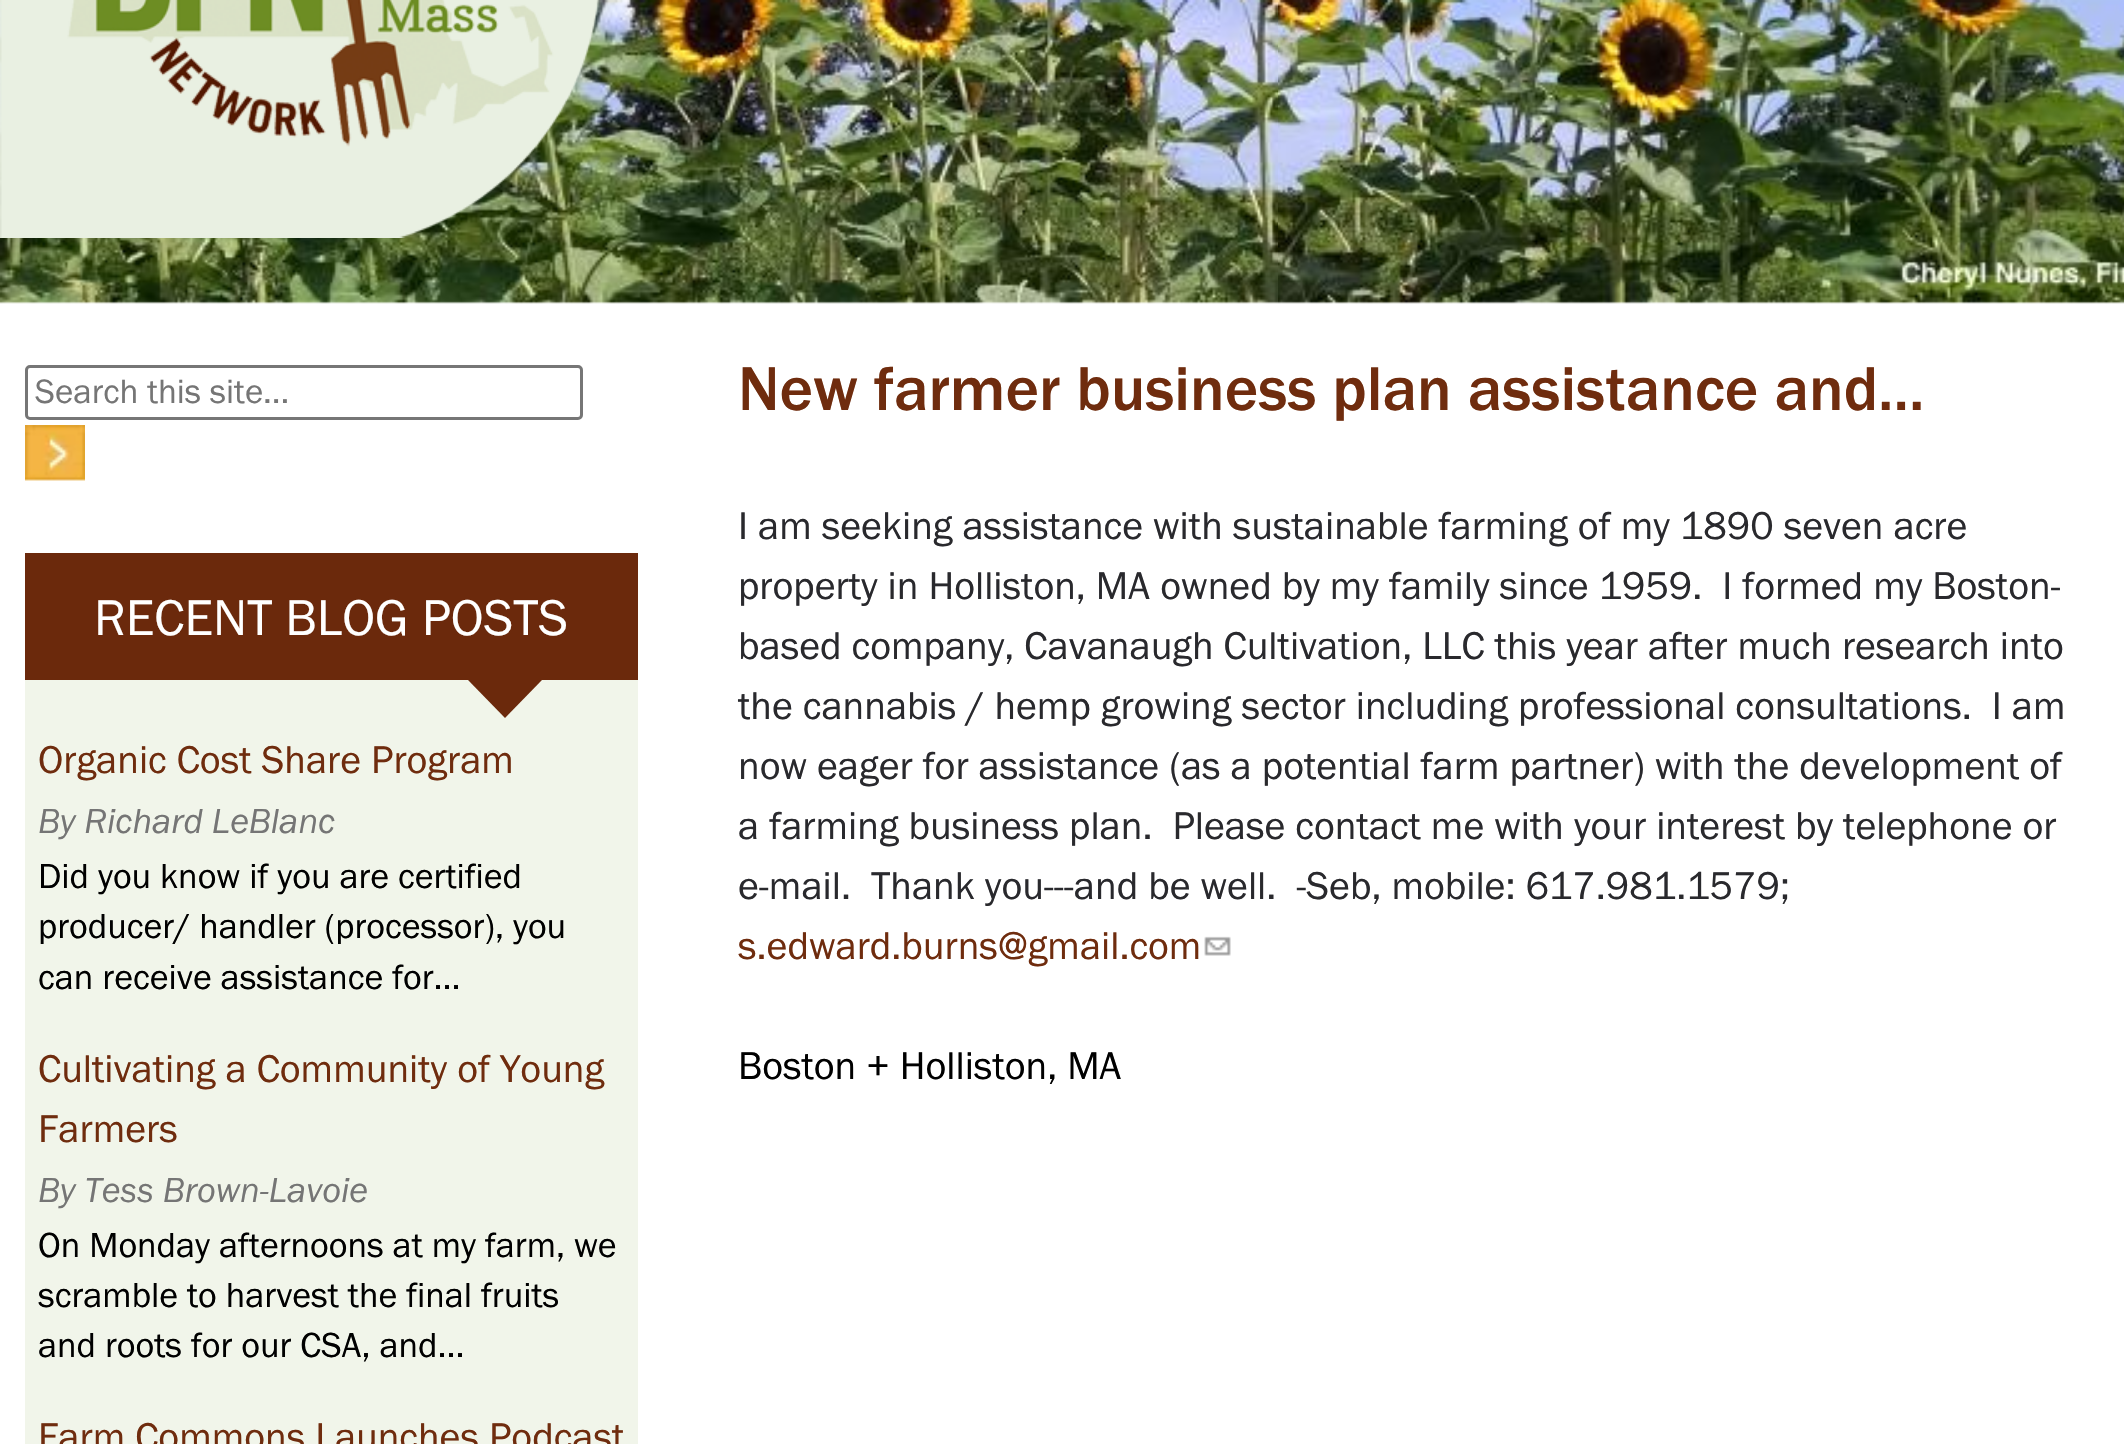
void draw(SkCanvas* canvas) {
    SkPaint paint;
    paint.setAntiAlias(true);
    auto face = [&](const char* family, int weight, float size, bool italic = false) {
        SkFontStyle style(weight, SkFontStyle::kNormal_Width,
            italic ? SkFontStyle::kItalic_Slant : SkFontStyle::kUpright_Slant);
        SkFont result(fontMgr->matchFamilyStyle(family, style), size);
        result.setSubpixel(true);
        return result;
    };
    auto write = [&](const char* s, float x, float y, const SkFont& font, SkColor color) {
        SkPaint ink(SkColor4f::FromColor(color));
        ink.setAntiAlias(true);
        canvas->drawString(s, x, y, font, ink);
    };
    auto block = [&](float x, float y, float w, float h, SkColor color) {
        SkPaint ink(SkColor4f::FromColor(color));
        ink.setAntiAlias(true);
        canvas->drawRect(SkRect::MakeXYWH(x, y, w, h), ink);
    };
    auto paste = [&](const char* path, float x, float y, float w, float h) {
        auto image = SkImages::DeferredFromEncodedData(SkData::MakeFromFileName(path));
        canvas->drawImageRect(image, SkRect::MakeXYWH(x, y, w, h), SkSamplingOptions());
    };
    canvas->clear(SK_ColorWHITE);
    paste("pic1.png", 0, 0, 2124, 304);
    paste("pic2.png", 0, 0, 599, 238);
    paint.setStyle(SkPaint::kStroke_Style);
    paint.setStrokeWidth(3);
    paint.setColor(SkColorSetRGB(118, 118, 118));
    canvas->drawRoundRect(SkRect::MakeXYWH(26.5f, 366.5f, 555, 52), 3.5f, 3.5f, paint);
    auto kFont1 = face("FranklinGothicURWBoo", 400, 35);
    write("Search this site...", 35, 403, kFont1, SkColorSetRGB(117, 117, 117));
    paste("pic3.png", 25, 425, 60, 56);
    block(25, 680, 613, 764, SkColorSetRGB(241, 245, 234));
    block(25, 553, 613, 127, SkColorSetRGB(107, 41, 12));
    auto kFont2 = face("FranklinGothicURWBoo", 400, 52);
    write("RECENT BLOG POSTS", 94, 635, kFont2, SK_ColorWHITE);
    paint.setStyle(SkPaint::kFill_Style);
    paint.setColor(SkColorSetRGB(107, 41, 12));
    canvas->drawPath(SkPathBuilder().moveTo(468, 680).lineTo(542, 680).lineTo(505, 718).close().detach(), paint);
    auto kFont3 = face("FranklinGothicURWBoo", 400, 40);
    write("Organic Cost Share Program", 38, 773, kFont3, SkColorSetRGB(111, 44, 14));
    auto kFont4 = face("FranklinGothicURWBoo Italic", 400, 36, true);
    write("By Richard LeBlanc", 38, 833, kFont4, SkColorSetRGB(117, 117, 117));
    auto kFont5 = face("FranklinGothicURWBoo", 400, 36);
    write("Did you know if you are certified", 38, 888, kFont5, SK_ColorBLACK);
    write("producer/ handler (processor), you", 38, 938, kFont5, SK_ColorBLACK);
    write("can receive assistance for...", 38, 989, kFont5, SK_ColorBLACK);
    write("Cultivating a Community of Young", 38, 1082, kFont3, SkColorSetRGB(111, 44, 14));
    write("Farmers", 38, 1142, kFont3, SkColorSetRGB(111, 44, 14));
    write("By Tess Brown-Lavoie", 38, 1202, kFont4, SkColorSetRGB(117, 117, 117));
    write("On Monday afternoons at my farm, we", 38, 1257, kFont5, SK_ColorBLACK);
    write("scramble to harvest the final fruits", 38, 1307, kFont5, SK_ColorBLACK);
    write("and roots for our CSA, and...", 38, 1357, kFont5, SK_ColorBLACK);
    write("Farm Commons Launches Podcast", 38, 1450, kFont3, SkColorSetRGB(111, 44, 14));
    auto kFont6 = face("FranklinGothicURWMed", 400, 64);
    write("New farmer business plan assistance and...", 738, 410, kFont6, SkColorSetRGB(111, 44, 14));
    write("I am seeking assistance with sustainable farming of my 1890 seven acre", 738, 539, kFont3, SkColorSetRGB(41, 41, 45));
    write("property in Holliston, MA owned by my family since 1959.  I formed my Boston-", 738, 599, kFont3, SkColorSetRGB(41, 41, 45));
    write("based company, Cavanaugh Cultivation, LLC this year after much research into", 738, 659, kFont3, SkColorSetRGB(41, 41, 45));
    write("the cannabis / hemp growing sector including professional consultations.  I am", 738, 719, kFont3, SkColorSetRGB(41, 41, 45));
    write("now eager for assistance (as a potential farm partner) with the development of", 738, 779, kFont3, SkColorSetRGB(41, 41, 45));
    write("a farming business plan.  Please contact me with your interest by telephone or", 738, 839, kFont3, SkColorSetRGB(41, 41, 45));
    write("e-mail.  Thank you---and be well.  -Seb, mobile: 617.981.1579;", 738, 899, kFont3, SkColorSetRGB(41, 41, 45));
    write("s.edward.burns@gmail.com", 738, 959, kFont3, SkColorSetRGB(111, 44, 14));
    paste("pic4.png", 1204, 936, 27, 20);
    write("Boston + Holliston, MA", 738, 1079, kFont3, SK_ColorBLACK);
}
